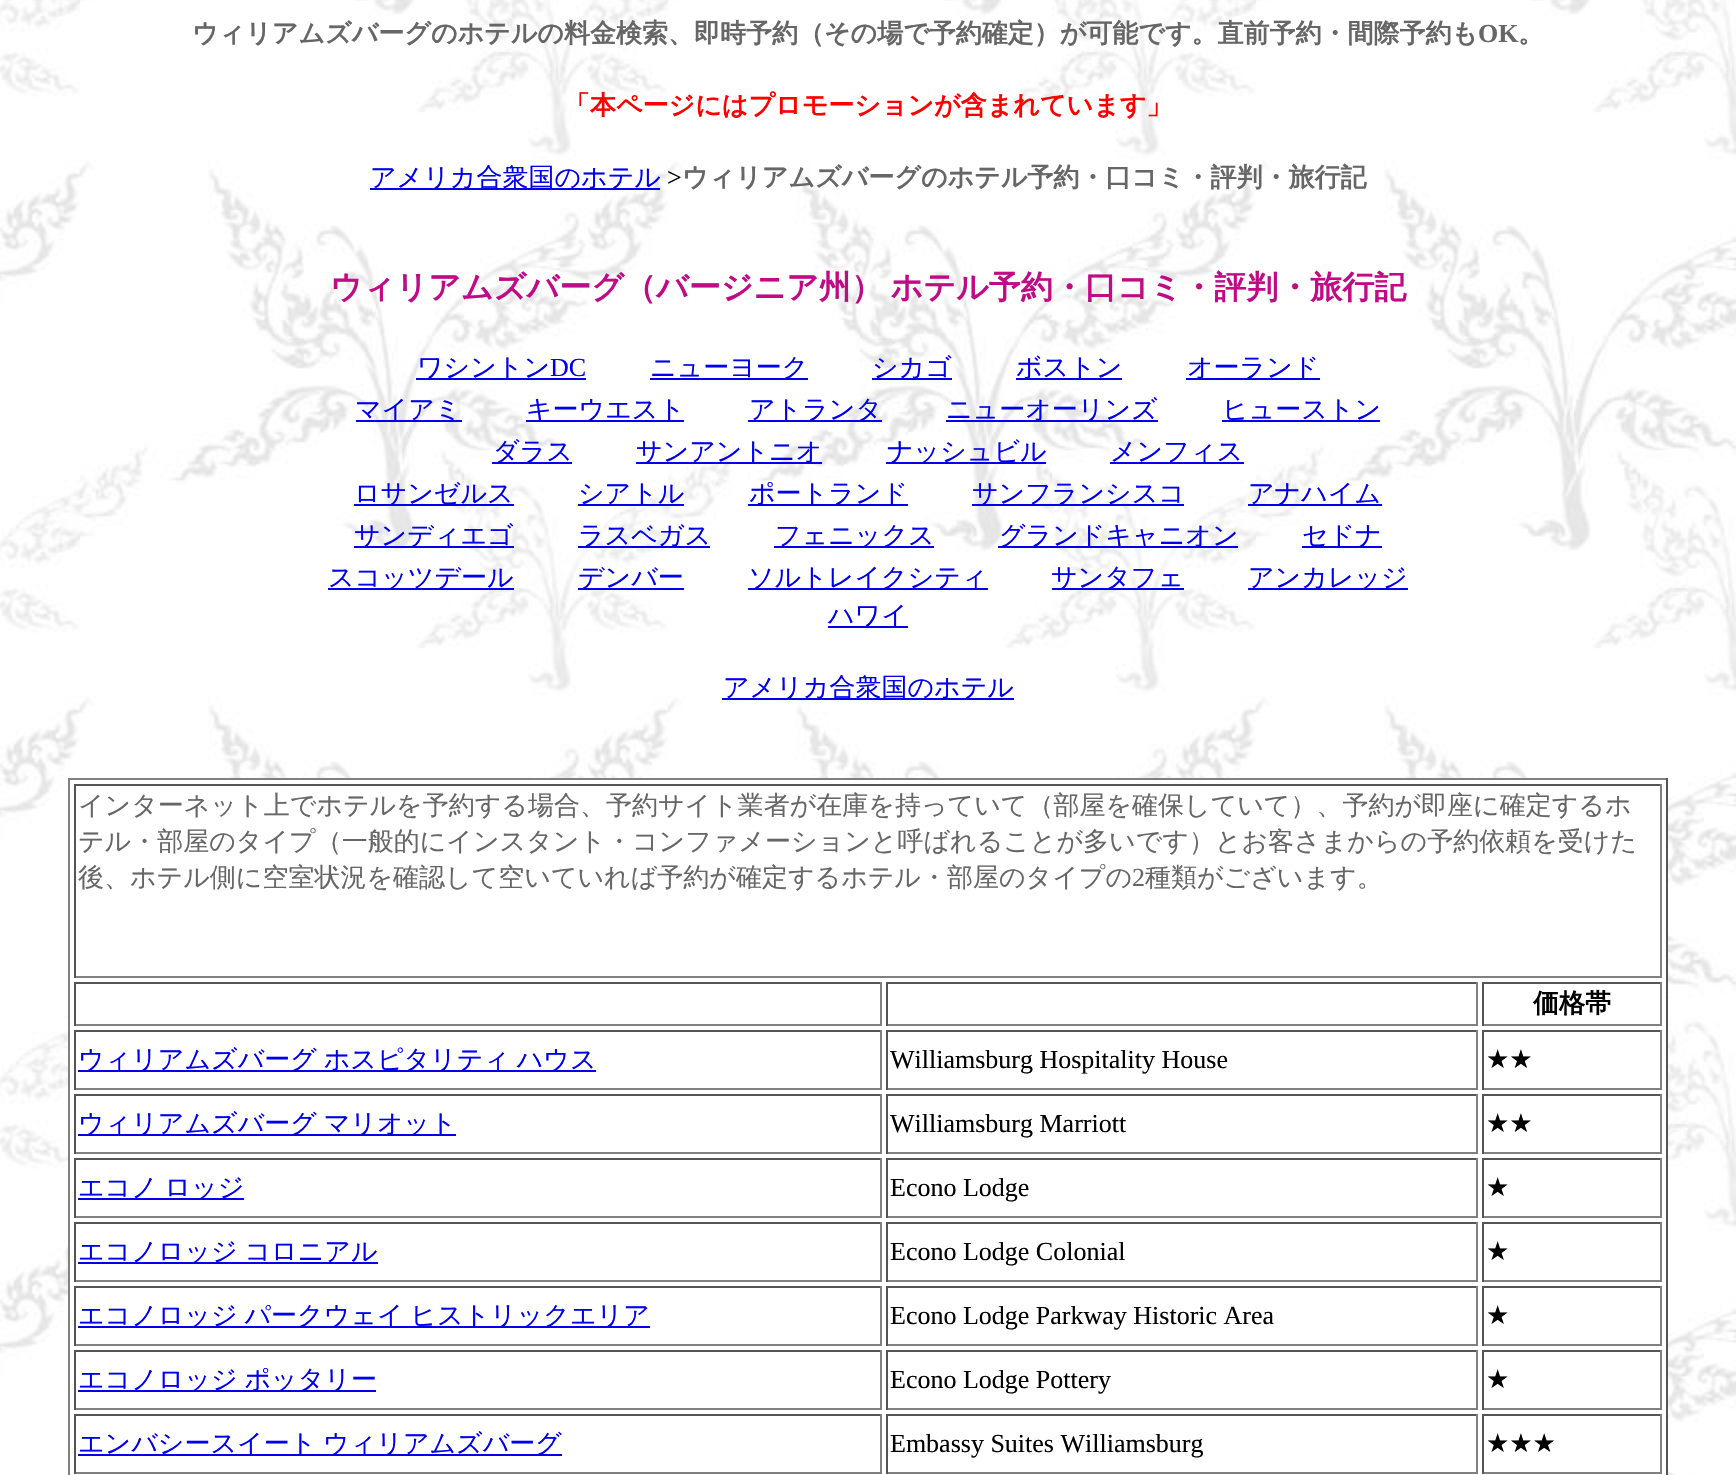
void draw(SkCanvas* canvas) {
    SkPaint paint;
    paint.setAntiAlias(true);
    auto face = [&](const char* family, int weight, float size, bool italic = false) {
        SkFontStyle style(weight, SkFontStyle::kNormal_Width,
            italic ? SkFontStyle::kItalic_Slant : SkFontStyle::kUpright_Slant);
        SkFont result(fontMgr->matchFamilyStyle(family, style), size);
        result.setSubpixel(true);
        return result;
    };
    auto write = [&](const char* s, float x, float y, const SkFont& font, SkColor color) {
        SkPaint ink(SkColor4f::FromColor(color));
        ink.setAntiAlias(true);
        canvas->drawString(s, x, y, font, ink);
    };
    auto writeSpaced = [&](const char* s, float x, float y, const SkFont& font, const SkPaint& ink, float letter, float word) {
        std::vector<SkGlyphID> glyphs(font.countText(s, strlen(s), SkTextEncoding::kUTF8));
        std::vector<float> xs(glyphs.size());
        font.textToGlyphs(s, strlen(s), SkTextEncoding::kUTF8, glyphs);
        font.getXPos(glyphs, xs, x);
        float extra = 0;
        for (size_t i = 0; i < glyphs.size(); i++) {
            xs[i] += extra;
            extra += letter + word * (glyphs[i] == font.unicharToGlyph(' '));
        }
        canvas->drawTextBlob(SkTextBlob::MakeFromPosHGlyphs(glyphs, xs, y, font), 0, 0, ink);
    };
    auto block = [&](float x, float y, float w, float h, SkColor color) {
        SkPaint ink(SkColor4f::FromColor(color));
        ink.setAntiAlias(true);
        canvas->drawRect(SkRect::MakeXYWH(x, y, w, h), ink);
    };
    auto paste = [&](const char* path, float x, float y, float w, float h) {
        auto image = SkImages::DeferredFromEncodedData(SkData::MakeFromFileName(path));
        canvas->drawImageRect(image, SkRect::MakeXYWH(x, y, w, h), SkSamplingOptions());
    };
    canvas->clear(SK_ColorWHITE);
    paste("pic1.png", 0, 0, 1736, 1475);
    auto kFont1 = face("WenQuanYi Zen Hei", 700, 26);
    write("ウィリアムズバーグのホテルの料金検索、即時予約（その場で予約確定）が可能です。直前予約・間際予約も", 192, 42, kFont1, SkColorSetRGB(102, 102, 102));
    auto kFont2 = face("Liberation Serif", 700, 26);
    write("OK", 1478, 42, kFont2, SkColorSetRGB(102, 102, 102));
    write("。", 1518, 42, kFont1, SkColorSetRGB(102, 102, 102));
    write("「本ページにはプロモーションが含まれています」", 564, 114, kFont1, SkColorSetRGB(255, 0, 0));
    block(370, 188, 290, 2, SkColorSetRGB(0, 0, 238));
    auto kFont3 = face("WenQuanYi Zen Hei", 500, 26);
    write("アメリカ合衆国のホテル", 370, 186, kFont3, SkColorSetRGB(0, 0, 238));
    auto kFont4 = face("Liberation Serif", 400, 26);
    write(">", 667, 186, kFont4, SK_ColorBLACK);
    write("ウィリアムズバーグのホテル予約・口コミ・評判・旅行記", 682, 186, kFont1, SkColorSetRGB(102, 102, 102));
    auto kFont5 = face("WenQuanYi Zen Hei", 700, 32);
    paint.setColor(SkColorSetRGB(193, 11, 134));
    writeSpaced("ウィリアムズバーグ（バージニア州） ホテル予約・口コミ・評判・旅行記", 330, 298, kFont5, paint, 0, -2);
    block(416, 378, 170, 2, SkColorSetRGB(0, 0, 238));
    write("ワシントン", 417, 376, kFont3, SkColorSetRGB(0, 0, 238));
    write("DC", 550, 376, kFont4, SkColorSetRGB(0, 0, 238));
    block(650, 378, 158, 2, SkColorSetRGB(0, 0, 238));
    write("ニューヨーク", 650, 376, kFont3, SkColorSetRGB(0, 0, 238));
    block(872, 378, 80, 2, SkColorSetRGB(0, 0, 238));
    write("シカゴ", 872, 376, kFont3, SkColorSetRGB(0, 0, 238));
    block(1016, 378, 106, 2, SkColorSetRGB(0, 0, 238));
    write("ボストン", 1016, 376, kFont3, SkColorSetRGB(0, 0, 238));
    block(1186, 378, 134, 2, SkColorSetRGB(0, 0, 238));
    write("オーランド", 1187, 376, kFont3, SkColorSetRGB(0, 0, 238));
    block(356, 420, 106, 2, SkColorSetRGB(0, 0, 238));
    write("マイアミ", 355, 418, kFont3, SkColorSetRGB(0, 0, 238));
    block(526, 420, 158, 2, SkColorSetRGB(0, 0, 238));
    write("キーウエスト", 526, 418, kFont3, SkColorSetRGB(0, 0, 238));
    block(748, 420, 134, 2, SkColorSetRGB(0, 0, 238));
    write("アトランタ", 749, 418, kFont3, SkColorSetRGB(0, 0, 238));
    block(946, 420, 212, 2, SkColorSetRGB(0, 0, 238));
    write("ニューオーリンズ", 946, 418, kFont3, SkColorSetRGB(0, 0, 238));
    block(1222, 420, 158, 2, SkColorSetRGB(0, 0, 238));
    write("ヒューストン", 1222, 418, kFont3, SkColorSetRGB(0, 0, 238));
    block(492, 462, 80, 2, SkColorSetRGB(0, 0, 238));
    write("ダラス", 493, 460, kFont3, SkColorSetRGB(0, 0, 238));
    block(636, 462, 186, 2, SkColorSetRGB(0, 0, 238));
    write("サンアントニオ", 636, 460, kFont3, SkColorSetRGB(0, 0, 238));
    block(886, 462, 160, 2, SkColorSetRGB(0, 0, 238));
    write("ナッシュビル", 887, 460, kFont3, SkColorSetRGB(0, 0, 238));
    block(1110, 462, 134, 2, SkColorSetRGB(0, 0, 238));
    write("メンフィス", 1110, 460, kFont3, SkColorSetRGB(0, 0, 238));
    block(354, 504, 160, 2, SkColorSetRGB(0, 0, 238));
    write("ロサンゼルス", 354, 502, kFont3, SkColorSetRGB(0, 0, 238));
    block(578, 504, 106, 2, SkColorSetRGB(0, 0, 238));
    write("シアトル", 578, 502, kFont3, SkColorSetRGB(0, 0, 238));
    block(748, 504, 160, 2, SkColorSetRGB(0, 0, 238));
    write("ポートランド", 749, 502, kFont3, SkColorSetRGB(0, 0, 238));
    block(972, 504, 212, 2, SkColorSetRGB(0, 0, 238));
    write("サンフランシスコ", 972, 502, kFont3, SkColorSetRGB(0, 0, 238));
    block(1248, 504, 134, 2, SkColorSetRGB(0, 0, 238));
    write("アナハイム", 1248, 502, kFont3, SkColorSetRGB(0, 0, 238));
    block(354, 546, 160, 2, SkColorSetRGB(0, 0, 238));
    write("サンディエゴ", 354, 544, kFont3, SkColorSetRGB(0, 0, 238));
    block(578, 546, 132, 2, SkColorSetRGB(0, 0, 238));
    write("ラスベガス", 578, 544, kFont3, SkColorSetRGB(0, 0, 238));
    block(774, 546, 160, 2, SkColorSetRGB(0, 0, 238));
    write("フェニックス", 775, 544, kFont3, SkColorSetRGB(0, 0, 238));
    block(998, 546, 240, 2, SkColorSetRGB(0, 0, 238));
    write("グランドキャニオン", 999, 544, kFont3, SkColorSetRGB(0, 0, 238));
    block(1302, 546, 80, 2, SkColorSetRGB(0, 0, 238));
    write("セドナ", 1302, 544, kFont3, SkColorSetRGB(0, 0, 238));
    block(328, 588, 186, 2, SkColorSetRGB(0, 0, 238));
    write("スコッツデール", 328, 586, kFont3, SkColorSetRGB(0, 0, 238));
    block(578, 588, 106, 2, SkColorSetRGB(0, 0, 238));
    write("デンバー", 578, 586, kFont3, SkColorSetRGB(0, 0, 238));
    block(748, 588, 240, 2, SkColorSetRGB(0, 0, 238));
    write("ソルトレイクシティ", 748, 586, kFont3, SkColorSetRGB(0, 0, 238));
    block(1052, 588, 132, 2, SkColorSetRGB(0, 0, 238));
    write("サンタフェ", 1051, 586, kFont3, SkColorSetRGB(0, 0, 238));
    block(1248, 588, 160, 2, SkColorSetRGB(0, 0, 238));
    write("アンカレッジ", 1248, 586, kFont3, SkColorSetRGB(0, 0, 238));
    block(828, 626, 80, 2, SkColorSetRGB(0, 0, 238));
    write("ハワイ", 828, 624, kFont3, SkColorSetRGB(0, 0, 238));
    block(722, 698, 292, 2, SkColorSetRGB(0, 0, 238));
    write("アメリカ合衆国のホテル", 723, 696, kFont3, SkColorSetRGB(0, 0, 238));
    block(70, 780, 1596, 695, SK_ColorWHITE);
    block(68, 778, 1600, 2, SkColorSetRGB(128, 128, 128));
    block(1666, 778, 2, 697, SkColorSetRGB(85, 85, 85));
    block(68, 778, 2, 697, SkColorSetRGB(128, 128, 128));
    block(74, 784, 1588, 2, SkColorSetRGB(85, 85, 85));
    block(1660, 784, 2, 194, SkColorSetRGB(128, 128, 128));
    block(74, 976, 1588, 2, SkColorSetRGB(128, 128, 128));
    block(74, 784, 2, 194, SkColorSetRGB(85, 85, 85));
    write("インターネット上でホテルを予約する場合、予約サイト業者が在庫を持っていて（部屋を確保していて）、予約が即座に確定するホ", 78, 814, kFont3, SkColorSetRGB(102, 102, 102));
    write("テル・部屋のタイプ（一般的にインスタント・コンファメーションと呼ばれることが多いです）とお客さまからの予約依頼を受けた", 78, 850, kFont3, SkColorSetRGB(102, 102, 102));
    write("後、ホテル側に空室状況を確認して空いていれば予約が確定するホテル・部屋のタイプの", 78, 886, kFont3, SkColorSetRGB(102, 102, 102));
    write("2", 1132, 886, kFont4, SkColorSetRGB(102, 102, 102));
    write("種類がございます。", 1145, 886, kFont3, SkColorSetRGB(102, 102, 102));
    block(74, 982, 808, 2, SkColorSetRGB(85, 85, 85));
    block(880, 982, 2, 44, SkColorSetRGB(128, 128, 128));
    block(74, 1024, 808, 2, SkColorSetRGB(128, 128, 128));
    block(74, 982, 2, 44, SkColorSetRGB(85, 85, 85));
    block(886, 982, 592, 2, SkColorSetRGB(85, 85, 85));
    block(1476, 982, 2, 44, SkColorSetRGB(128, 128, 128));
    block(886, 1024, 592, 2, SkColorSetRGB(128, 128, 128));
    block(886, 982, 2, 44, SkColorSetRGB(85, 85, 85));
    block(1482, 982, 180, 2, SkColorSetRGB(85, 85, 85));
    block(1660, 982, 2, 44, SkColorSetRGB(128, 128, 128));
    block(1482, 1024, 180, 2, SkColorSetRGB(128, 128, 128));
    block(1482, 982, 2, 44, SkColorSetRGB(85, 85, 85));
    write("価格帯", 1533, 1012, kFont1, SK_ColorBLACK);
    block(74, 1030, 808, 2, SkColorSetRGB(85, 85, 85));
    block(880, 1030, 2, 60, SkColorSetRGB(128, 128, 128));
    block(74, 1088, 808, 2, SkColorSetRGB(128, 128, 128));
    block(74, 1030, 2, 60, SkColorSetRGB(85, 85, 85));
    block(78, 1070, 518, 2, SkColorSetRGB(0, 0, 238));
    paint.setColor(SkColorSetRGB(0, 0, 238));
    writeSpaced("ウィリアムズバーグ ホスピタリティ ハウス", 78, 1068, kFont3, paint, 0, -1);
    block(886, 1030, 592, 2, SkColorSetRGB(85, 85, 85));
    block(1476, 1030, 2, 60, SkColorSetRGB(128, 128, 128));
    block(886, 1088, 592, 2, SkColorSetRGB(128, 128, 128));
    block(886, 1030, 2, 60, SkColorSetRGB(85, 85, 85));
    write("Williamsburg Hospitality House", 890, 1068, kFont4, SK_ColorBLACK);
    block(1482, 1030, 180, 2, SkColorSetRGB(85, 85, 85));
    block(1660, 1030, 2, 60, SkColorSetRGB(128, 128, 128));
    block(1482, 1088, 180, 2, SkColorSetRGB(128, 128, 128));
    block(1482, 1030, 2, 60, SkColorSetRGB(85, 85, 85));
    auto kFont6 = face("DejaVu Sans", 400, 26);
    write("★★", 1486, 1068, kFont6, SK_ColorBLACK);
    block(74, 1094, 808, 2, SkColorSetRGB(85, 85, 85));
    block(880, 1094, 2, 60, SkColorSetRGB(128, 128, 128));
    block(74, 1152, 808, 2, SkColorSetRGB(128, 128, 128));
    block(74, 1094, 2, 60, SkColorSetRGB(85, 85, 85));
    block(78, 1134, 378, 2, SkColorSetRGB(0, 0, 238));
    writeSpaced("ウィリアムズバーグ マリオット", 78, 1132, kFont3, paint, 0, -1);
    block(886, 1094, 592, 2, SkColorSetRGB(85, 85, 85));
    block(1476, 1094, 2, 60, SkColorSetRGB(128, 128, 128));
    block(886, 1152, 592, 2, SkColorSetRGB(128, 128, 128));
    block(886, 1094, 2, 60, SkColorSetRGB(85, 85, 85));
    write("Williamsburg Marriott", 890, 1132, kFont4, SK_ColorBLACK);
    block(1482, 1094, 180, 2, SkColorSetRGB(85, 85, 85));
    block(1660, 1094, 2, 60, SkColorSetRGB(128, 128, 128));
    block(1482, 1152, 180, 2, SkColorSetRGB(128, 128, 128));
    block(1482, 1094, 2, 60, SkColorSetRGB(85, 85, 85));
    write("★★", 1486, 1132, kFont6, SK_ColorBLACK);
    block(74, 1158, 808, 2, SkColorSetRGB(85, 85, 85));
    block(880, 1158, 2, 60, SkColorSetRGB(128, 128, 128));
    block(74, 1216, 808, 2, SkColorSetRGB(128, 128, 128));
    block(74, 1158, 2, 60, SkColorSetRGB(85, 85, 85));
    block(78, 1198, 166, 2, SkColorSetRGB(0, 0, 238));
    writeSpaced("エコノ ロッジ", 78, 1196, kFont3, paint, 0, -1);
    block(886, 1158, 592, 2, SkColorSetRGB(85, 85, 85));
    block(1476, 1158, 2, 60, SkColorSetRGB(128, 128, 128));
    block(886, 1216, 592, 2, SkColorSetRGB(128, 128, 128));
    block(886, 1158, 2, 60, SkColorSetRGB(85, 85, 85));
    write("Econo Lodge", 890, 1196, kFont4, SK_ColorBLACK);
    block(1482, 1158, 180, 2, SkColorSetRGB(85, 85, 85));
    block(1660, 1158, 2, 60, SkColorSetRGB(128, 128, 128));
    block(1482, 1216, 180, 2, SkColorSetRGB(128, 128, 128));
    block(1482, 1158, 2, 60, SkColorSetRGB(85, 85, 85));
    write("★", 1486, 1196, kFont6, SK_ColorBLACK);
    block(74, 1222, 808, 2, SkColorSetRGB(85, 85, 85));
    block(880, 1222, 2, 60, SkColorSetRGB(128, 128, 128));
    block(74, 1280, 808, 2, SkColorSetRGB(128, 128, 128));
    block(74, 1222, 2, 60, SkColorSetRGB(85, 85, 85));
    block(78, 1262, 300, 2, SkColorSetRGB(0, 0, 238));
    writeSpaced("エコノロッジ コロニアル", 78, 1260, kFont3, paint, 0, -1);
    block(886, 1222, 592, 2, SkColorSetRGB(85, 85, 85));
    block(1476, 1222, 2, 60, SkColorSetRGB(128, 128, 128));
    block(886, 1280, 592, 2, SkColorSetRGB(128, 128, 128));
    block(886, 1222, 2, 60, SkColorSetRGB(85, 85, 85));
    write("Econo Lodge Colonial", 890, 1260, kFont4, SK_ColorBLACK);
    block(1482, 1222, 180, 2, SkColorSetRGB(85, 85, 85));
    block(1660, 1222, 2, 60, SkColorSetRGB(128, 128, 128));
    block(1482, 1280, 180, 2, SkColorSetRGB(128, 128, 128));
    block(1482, 1222, 2, 60, SkColorSetRGB(85, 85, 85));
    write("★", 1486, 1260, kFont6, SK_ColorBLACK);
    block(74, 1286, 808, 2, SkColorSetRGB(85, 85, 85));
    block(880, 1286, 2, 60, SkColorSetRGB(128, 128, 128));
    block(74, 1344, 808, 2, SkColorSetRGB(128, 128, 128));
    block(74, 1286, 2, 60, SkColorSetRGB(85, 85, 85));
    block(78, 1326, 572, 2, SkColorSetRGB(0, 0, 238));
    writeSpaced("エコノロッジ パークウェイ ヒストリックエリア", 78, 1324, kFont3, paint, 0, -1);
    block(886, 1286, 592, 2, SkColorSetRGB(85, 85, 85));
    block(1476, 1286, 2, 60, SkColorSetRGB(128, 128, 128));
    block(886, 1344, 592, 2, SkColorSetRGB(128, 128, 128));
    block(886, 1286, 2, 60, SkColorSetRGB(85, 85, 85));
    write("Econo Lodge Parkway Historic Area", 890, 1324, kFont4, SK_ColorBLACK);
    block(1482, 1286, 180, 2, SkColorSetRGB(85, 85, 85));
    block(1660, 1286, 2, 60, SkColorSetRGB(128, 128, 128));
    block(1482, 1344, 180, 2, SkColorSetRGB(128, 128, 128));
    block(1482, 1286, 2, 60, SkColorSetRGB(85, 85, 85));
    write("★", 1486, 1324, kFont6, SK_ColorBLACK);
    block(74, 1350, 808, 2, SkColorSetRGB(85, 85, 85));
    block(880, 1350, 2, 60, SkColorSetRGB(128, 128, 128));
    block(74, 1408, 808, 2, SkColorSetRGB(128, 128, 128));
    block(74, 1350, 2, 60, SkColorSetRGB(85, 85, 85));
    block(78, 1390, 298, 2, SkColorSetRGB(0, 0, 238));
    writeSpaced("エコノロッジ ポッタリー", 78, 1388, kFont3, paint, 0, -1);
    block(886, 1350, 592, 2, SkColorSetRGB(85, 85, 85));
    block(1476, 1350, 2, 60, SkColorSetRGB(128, 128, 128));
    block(886, 1408, 592, 2, SkColorSetRGB(128, 128, 128));
    block(886, 1350, 2, 60, SkColorSetRGB(85, 85, 85));
    write("Econo Lodge Pottery", 890, 1388, kFont4, SK_ColorBLACK);
    block(1482, 1350, 180, 2, SkColorSetRGB(85, 85, 85));
    block(1660, 1350, 2, 60, SkColorSetRGB(128, 128, 128));
    block(1482, 1408, 180, 2, SkColorSetRGB(128, 128, 128));
    block(1482, 1350, 2, 60, SkColorSetRGB(85, 85, 85));
    write("★", 1486, 1388, kFont6, SK_ColorBLACK);
    block(74, 1414, 808, 2, SkColorSetRGB(85, 85, 85));
    block(880, 1414, 2, 60, SkColorSetRGB(128, 128, 128));
    block(74, 1472, 808, 2, SkColorSetRGB(128, 128, 128));
    block(74, 1414, 2, 60, SkColorSetRGB(85, 85, 85));
    block(78, 1454, 484, 2, SkColorSetRGB(0, 0, 238));
    writeSpaced("エンバシースイート ウィリアムズバーグ", 78, 1452, kFont3, paint, 0, -1);
    block(886, 1414, 592, 2, SkColorSetRGB(85, 85, 85));
    block(1476, 1414, 2, 60, SkColorSetRGB(128, 128, 128));
    block(886, 1472, 592, 2, SkColorSetRGB(128, 128, 128));
    block(886, 1414, 2, 60, SkColorSetRGB(85, 85, 85));
    write("Embassy Suites Williamsburg", 890, 1452, kFont4, SK_ColorBLACK);
    block(1482, 1414, 180, 2, SkColorSetRGB(85, 85, 85));
    block(1660, 1414, 2, 60, SkColorSetRGB(128, 128, 128));
    block(1482, 1472, 180, 2, SkColorSetRGB(128, 128, 128));
    block(1482, 1414, 2, 60, SkColorSetRGB(85, 85, 85));
    write("★★★", 1486, 1452, kFont6, SK_ColorBLACK);
}
